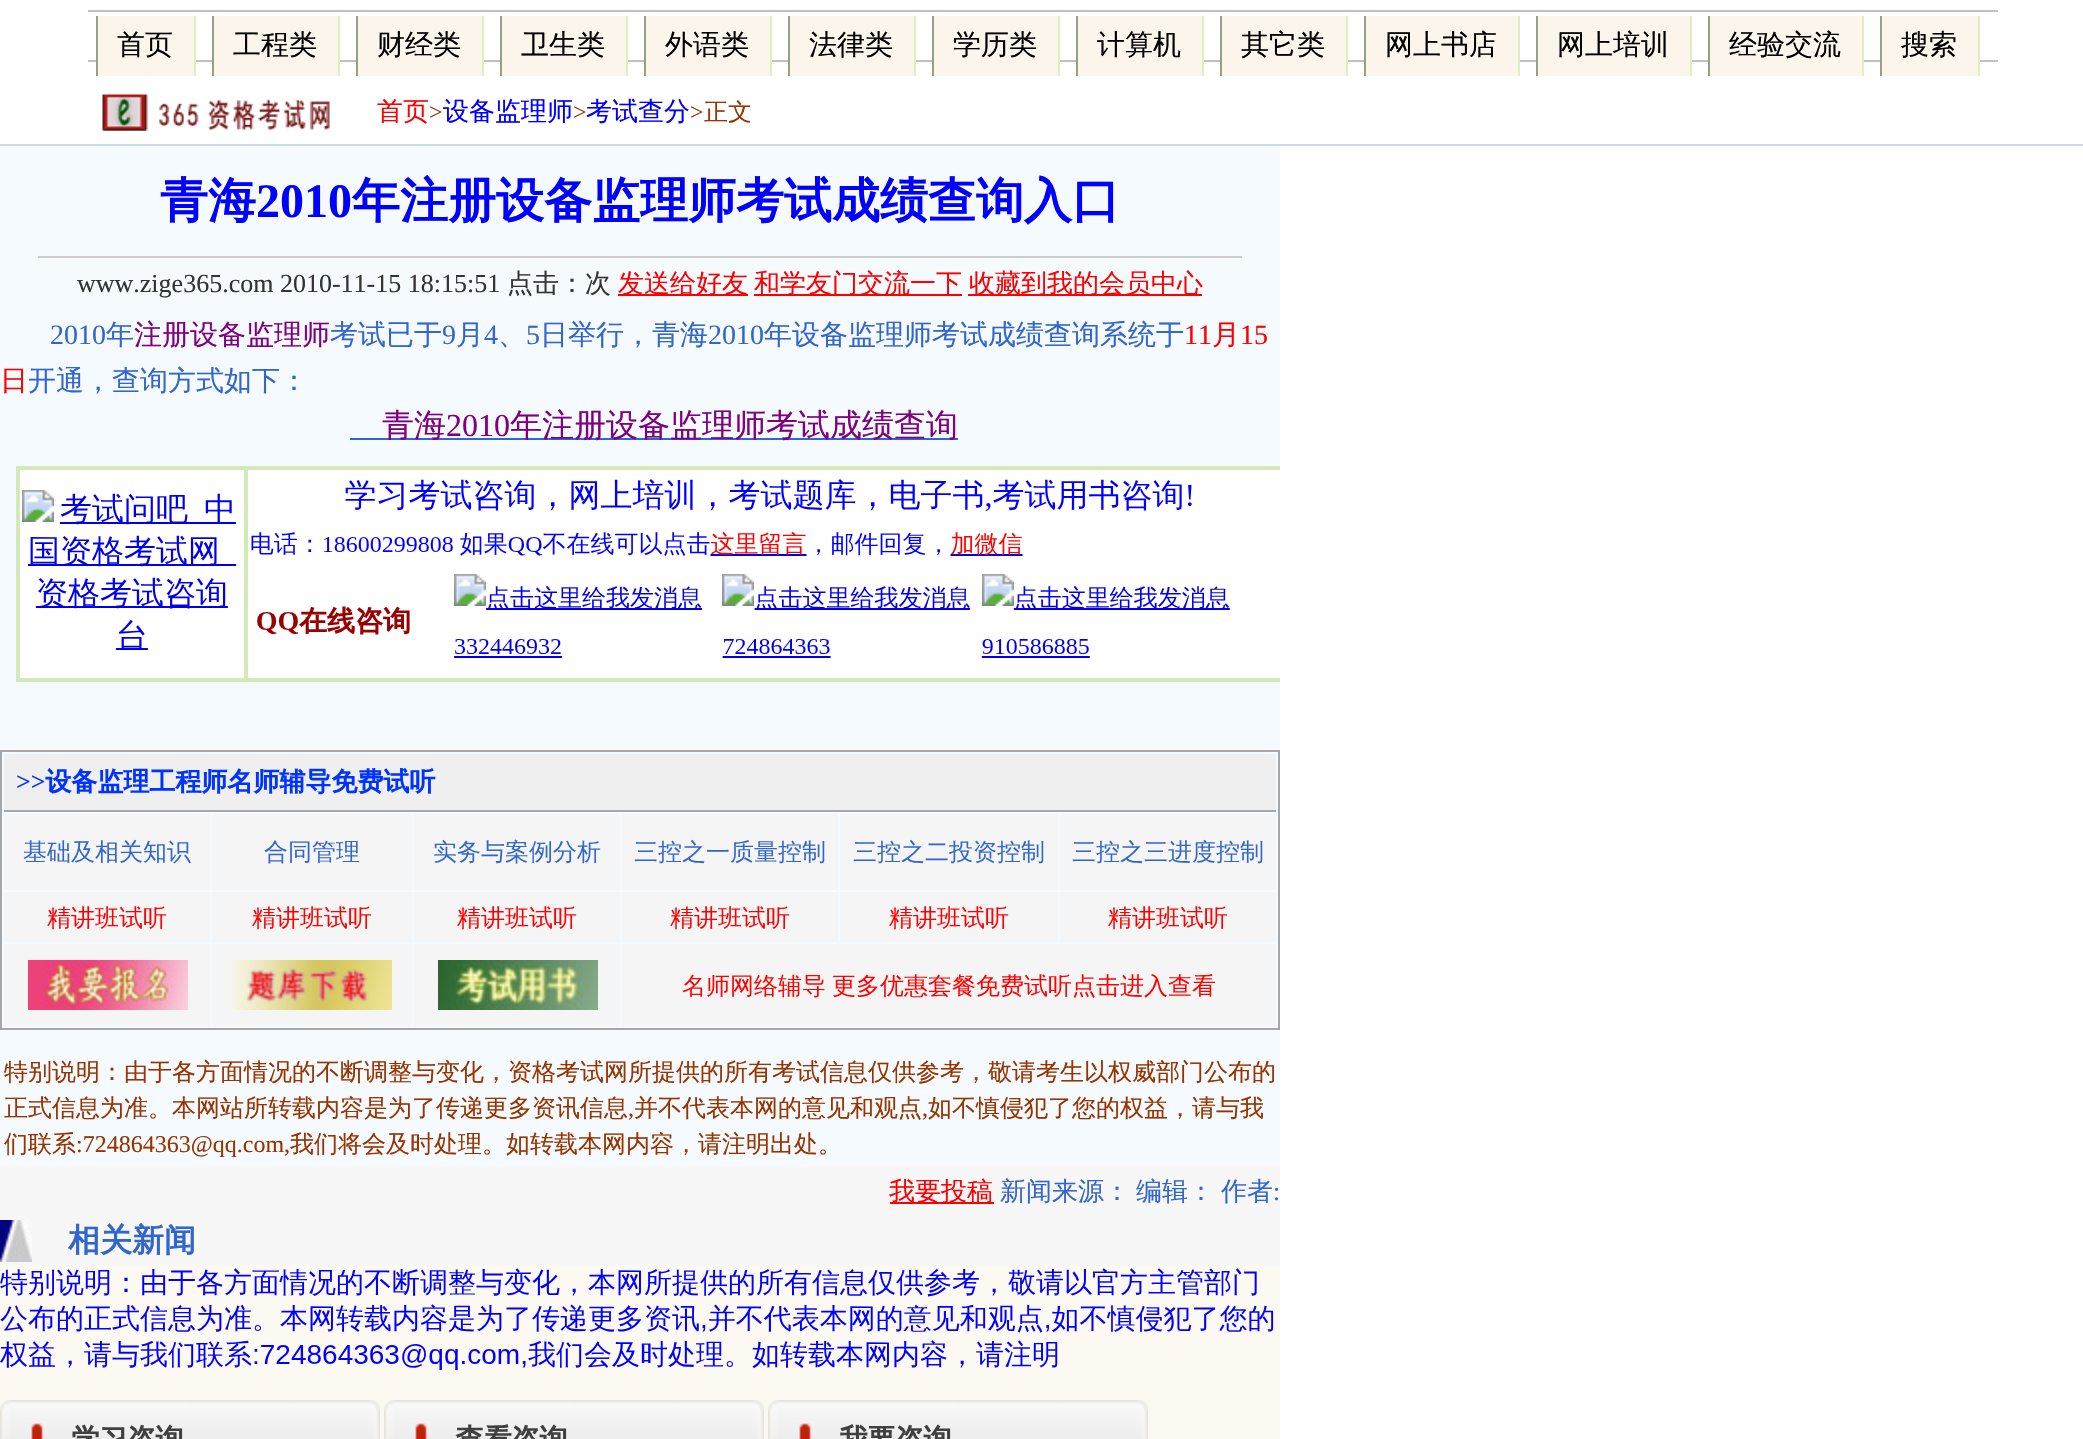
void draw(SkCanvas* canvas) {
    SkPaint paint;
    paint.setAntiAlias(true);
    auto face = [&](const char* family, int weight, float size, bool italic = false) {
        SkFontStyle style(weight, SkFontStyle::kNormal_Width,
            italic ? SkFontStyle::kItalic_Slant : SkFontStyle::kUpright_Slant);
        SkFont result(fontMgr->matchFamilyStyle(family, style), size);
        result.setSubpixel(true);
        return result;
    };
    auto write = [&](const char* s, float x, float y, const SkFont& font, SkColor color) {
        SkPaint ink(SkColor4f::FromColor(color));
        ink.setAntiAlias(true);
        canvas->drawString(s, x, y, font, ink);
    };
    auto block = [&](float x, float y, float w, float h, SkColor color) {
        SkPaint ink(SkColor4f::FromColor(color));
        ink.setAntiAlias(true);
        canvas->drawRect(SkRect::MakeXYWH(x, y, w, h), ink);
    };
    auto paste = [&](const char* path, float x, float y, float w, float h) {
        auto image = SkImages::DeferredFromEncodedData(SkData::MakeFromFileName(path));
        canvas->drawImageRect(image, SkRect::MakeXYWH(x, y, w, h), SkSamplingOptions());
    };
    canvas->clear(SK_ColorWHITE);
    block(88, 10, 1910, 2, SkColorSetRGB(192, 192, 192));
    block(88, 60, 1910, 2, SkColorSetRGB(192, 192, 192));
    block(98, 16, 96, 60, SkColorSetRGB(252, 245, 235));
    block(194, 16, 2, 60, SkColorSetRGB(220, 241, 194));
    block(96, 16, 2, 60, SkColorSetRGB(147, 161, 129));
    auto kFont1 = face("WenQuanYi Zen Hei", 500, 28);
    write("首页", 117, 54, kFont1, SK_ColorBLACK);
    block(214, 16, 124, 60, SkColorSetRGB(252, 245, 235));
    block(338, 16, 2, 60, SkColorSetRGB(220, 241, 194));
    block(212, 16, 2, 60, SkColorSetRGB(147, 161, 129));
    write("工程类", 233, 54, kFont1, SK_ColorBLACK);
    block(358, 16, 124, 60, SkColorSetRGB(252, 245, 235));
    block(482, 16, 2, 60, SkColorSetRGB(220, 241, 194));
    block(356, 16, 2, 60, SkColorSetRGB(147, 161, 129));
    write("财经类", 377, 54, kFont1, SK_ColorBLACK);
    block(502, 16, 124, 60, SkColorSetRGB(252, 245, 235));
    block(626, 16, 2, 60, SkColorSetRGB(220, 241, 194));
    block(500, 16, 2, 60, SkColorSetRGB(147, 161, 129));
    write("卫生类", 521, 54, kFont1, SK_ColorBLACK);
    block(646, 16, 124, 60, SkColorSetRGB(252, 245, 235));
    block(770, 16, 2, 60, SkColorSetRGB(220, 241, 194));
    block(644, 16, 2, 60, SkColorSetRGB(147, 161, 129));
    write("外语类", 665, 54, kFont1, SK_ColorBLACK);
    block(790, 16, 124, 60, SkColorSetRGB(252, 245, 235));
    block(914, 16, 2, 60, SkColorSetRGB(220, 241, 194));
    block(788, 16, 2, 60, SkColorSetRGB(147, 161, 129));
    write("法律类", 809, 54, kFont1, SK_ColorBLACK);
    block(934, 16, 124, 60, SkColorSetRGB(252, 245, 235));
    block(1058, 16, 2, 60, SkColorSetRGB(220, 241, 194));
    block(932, 16, 2, 60, SkColorSetRGB(147, 161, 129));
    write("学历类", 953, 54, kFont1, SK_ColorBLACK);
    block(1078, 16, 124, 60, SkColorSetRGB(252, 245, 235));
    block(1202, 16, 2, 60, SkColorSetRGB(220, 241, 194));
    block(1076, 16, 2, 60, SkColorSetRGB(147, 161, 129));
    write("计算机", 1097, 54, kFont1, SK_ColorBLACK);
    block(1222, 16, 124, 60, SkColorSetRGB(252, 245, 235));
    block(1346, 16, 2, 60, SkColorSetRGB(220, 241, 194));
    block(1220, 16, 2, 60, SkColorSetRGB(147, 161, 129));
    write("其它类", 1241, 54, kFont1, SK_ColorBLACK);
    block(1366, 16, 152, 60, SkColorSetRGB(252, 245, 235));
    block(1518, 16, 2, 60, SkColorSetRGB(220, 241, 194));
    block(1364, 16, 2, 60, SkColorSetRGB(147, 161, 129));
    write("网上书店", 1385, 54, kFont1, SK_ColorBLACK);
    block(1538, 16, 152, 60, SkColorSetRGB(252, 245, 235));
    block(1690, 16, 2, 60, SkColorSetRGB(220, 241, 194));
    block(1536, 16, 2, 60, SkColorSetRGB(147, 161, 129));
    write("网上培训", 1557, 54, kFont1, SK_ColorBLACK);
    block(1710, 16, 152, 60, SkColorSetRGB(252, 245, 235));
    block(1862, 16, 2, 60, SkColorSetRGB(220, 241, 194));
    block(1708, 16, 2, 60, SkColorSetRGB(147, 161, 129));
    write("经验交流", 1729, 54, kFont1, SK_ColorBLACK);
    block(1882, 16, 96, 60, SkColorSetRGB(252, 245, 235));
    block(1978, 16, 2, 60, SkColorSetRGB(220, 241, 194));
    block(1880, 16, 2, 60, SkColorSetRGB(147, 161, 129));
    write("搜索", 1901, 54, kFont1, SK_ColorBLACK);
    paste("pic1.png", 102, 94, 228, 37);
    auto kFont2 = face("WenQuanYi Zen Hei", 500, 26);
    write("首页", 377, 120, kFont2, SkColorSetRGB(255, 0, 0));
    auto kFont3 = face("Liberation Serif", 400, 24);
    write(">", 429, 120, kFont3, SkColorSetRGB(153, 51, 0));
    write("设备监理师", 443, 120, kFont2, SkColorSetRGB(0, 0, 255));
    write(">", 573, 120, kFont3, SkColorSetRGB(153, 51, 0));
    write("考试查分", 586, 120, kFont2, SkColorSetRGB(0, 0, 255));
    write(">", 690, 120, kFont3, SkColorSetRGB(153, 51, 0));
    auto kFont4 = face("WenQuanYi Zen Hei", 500, 24);
    write("正文", 704, 120, kFont4, SkColorSetRGB(153, 51, 0));
    block(0, 144, 2083, 2, SkColorSetRGB(203, 215, 236));
    block(0, 146, 1280, 1020, SkColorSetRGB(245, 250, 254));
    auto kFont5 = face("WenQuanYi Zen Hei", 700, 48);
    write("青海", 160, 217, kFont5, SkColorSetRGB(0, 0, 255));
    auto kFont6 = face("Liberation Serif", 700, 48);
    write("2010", 256, 217, kFont6, SkColorSetRGB(0, 0, 255));
    write("年注册设备监理师考试成绩查询入口", 352, 217, kFont5, SkColorSetRGB(0, 0, 255));
    block(38, 256, 1204, 2, SkColorSetRGB(204, 204, 204));
    auto kFont7 = face("Liberation Serif", 400, 26);
    write("www.zige365.com 2010-11-15 18:15:51", 77, 292, kFont7, SkColorSetRGB(51, 51, 51));
    write("点击：次", 507, 292, kFont2, SkColorSetRGB(51, 51, 51));
    block(618, 294, 130, 2, SkColorSetRGB(255, 0, 0));
    write("发送给好友", 618, 292, kFont2, SkColorSetRGB(255, 0, 0));
    block(754, 294, 208, 2, SkColorSetRGB(255, 0, 0));
    write("和学友门交流一下", 754, 292, kFont2, SkColorSetRGB(255, 0, 0));
    block(968, 294, 234, 2, SkColorSetRGB(255, 0, 0));
    write("收藏到我的会员中心", 969, 292, kFont2, SkColorSetRGB(255, 0, 0));
    auto kFont8 = face("Liberation Serif", 400, 28);
    write("2010", 50, 344, kFont8, SkColorSetRGB(51, 102, 204));
    write("年", 106, 344, kFont1, SkColorSetRGB(51, 102, 204));
    write("注册设备监理师", 134, 344, kFont1, SkColorSetRGB(128, 0, 128));
    write("考试已于", 330, 344, kFont1, SkColorSetRGB(51, 102, 204));
    write("9", 442, 344, kFont8, SkColorSetRGB(51, 102, 204));
    write("月", 456, 344, kFont1, SkColorSetRGB(51, 102, 204));
    write("4", 484, 344, kFont8, SkColorSetRGB(51, 102, 204));
    write("、", 498, 344, kFont1, SkColorSetRGB(51, 102, 204));
    write("5", 526, 344, kFont8, SkColorSetRGB(51, 102, 204));
    write("日举行，青海", 540, 344, kFont1, SkColorSetRGB(51, 102, 204));
    write("2010", 708, 344, kFont8, SkColorSetRGB(51, 102, 204));
    write("年设备监理师考试成绩查询系统于", 764, 344, kFont1, SkColorSetRGB(51, 102, 204));
    write("11", 1184, 344, kFont8, SkColorSetRGB(255, 0, 0));
    write("月", 1212, 344, kFont1, SkColorSetRGB(255, 0, 0));
    write("15", 1240, 344, kFont8, SkColorSetRGB(255, 0, 0));
    write("日", 0, 390, kFont1, SkColorSetRGB(255, 0, 0));
    write("开通，查询方式如下：", 28, 390, kFont1, SkColorSetRGB(51, 102, 204));
    block(350, 438, 608, 2, SkColorSetRGB(51, 102, 204));
    auto kFont9 = face("WenQuanYi Zen Hei", 500, 32);
    write("青海", 382, 436, kFont9, SkColorSetRGB(128, 0, 128));
    auto kFont10 = face("Liberation Serif", 400, 32);
    write("2010", 446, 436, kFont10, SkColorSetRGB(128, 0, 128));
    write("年注册设备监理师考试成绩查询", 510, 436, kFont9, SkColorSetRGB(128, 0, 128));
    paste("pic2.png", 16, 466, 1264, 216);
    paste("pic3.png", 0, 750, 1280, 280);
    write("特别说明：由于各方面情况的不断调整与变化，资格考试网所提供的所有考试信息仅供参考，敬请考生以权威部门公布的", 4, 1080, kFont4, SkColorSetRGB(153, 51, 0));
    write("正式信息为准。本网站所转载内容是为了传递更多资讯信息", 4, 1116, kFont4, SkColorSetRGB(153, 51, 0));
    write(",", 628, 1116, kFont3, SkColorSetRGB(153, 51, 0));
    write("并不代表本网的意见和观点", 634, 1116, kFont4, SkColorSetRGB(153, 51, 0));
    write(",", 922, 1116, kFont3, SkColorSetRGB(153, 51, 0));
    write("如不慎侵犯了您的权益，请与我", 928, 1116, kFont4, SkColorSetRGB(153, 51, 0));
    write("们联系", 4, 1152, kFont4, SkColorSetRGB(153, 51, 0));
    write(":724864363@qq.com,", 76, 1152, kFont3, SkColorSetRGB(153, 51, 0));
    write("我们将会及时处理。如转载本网内容，请注明出处。", 290, 1152, kFont4, SkColorSetRGB(153, 51, 0));
    block(0, 1166, 1280, 100, SkColorSetRGB(247, 247, 247));
    block(890, 1202, 104, 2, SkColorSetRGB(255, 0, 0));
    write("我要投稿", 889, 1200, kFont2, SkColorSetRGB(255, 0, 0));
    write("新闻来源：", 1000, 1200, kFont2, SkColorSetRGB(51, 102, 204));
    write("编辑：", 1136, 1200, kFont2, SkColorSetRGB(51, 102, 204));
    write("作者", 1221, 1200, kFont2, SkColorSetRGB(51, 102, 204));
    write(":", 1273, 1200, kFont7, SkColorSetRGB(51, 102, 204));
    paste("pic4.png", 0, 1220, 32, 42);
    auto kFont11 = face("WenQuanYi Zen Hei", 700, 32);
    write("相关新闻", 68, 1251, kFont11, SkColorSetRGB(51, 102, 204));
    paste("pic5.png", 0, 1266, 1280, 173);
}
